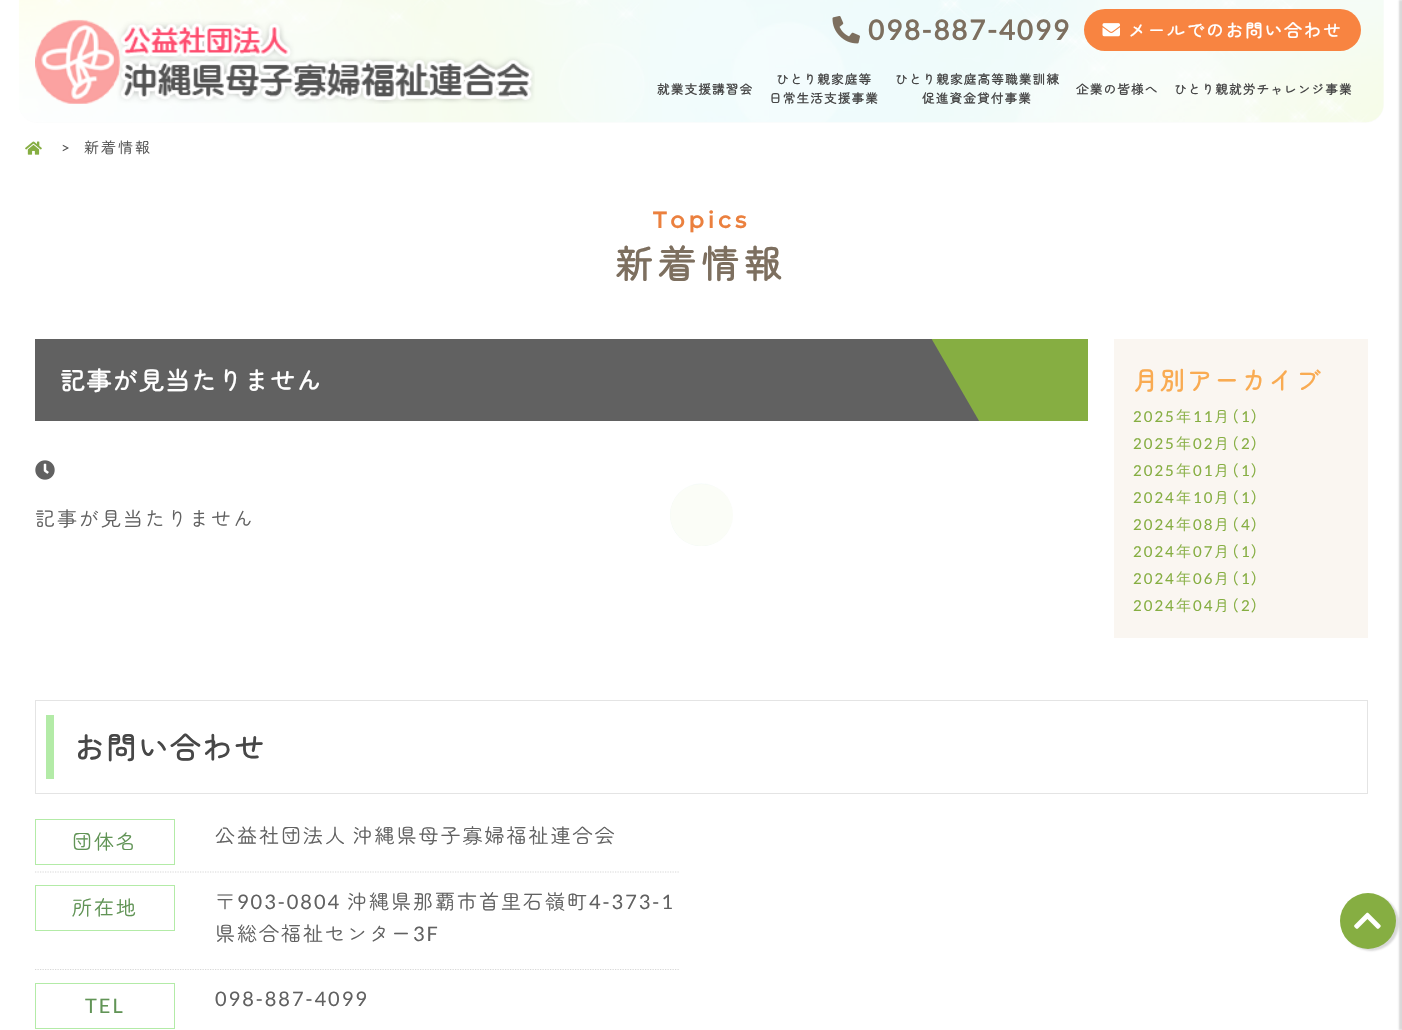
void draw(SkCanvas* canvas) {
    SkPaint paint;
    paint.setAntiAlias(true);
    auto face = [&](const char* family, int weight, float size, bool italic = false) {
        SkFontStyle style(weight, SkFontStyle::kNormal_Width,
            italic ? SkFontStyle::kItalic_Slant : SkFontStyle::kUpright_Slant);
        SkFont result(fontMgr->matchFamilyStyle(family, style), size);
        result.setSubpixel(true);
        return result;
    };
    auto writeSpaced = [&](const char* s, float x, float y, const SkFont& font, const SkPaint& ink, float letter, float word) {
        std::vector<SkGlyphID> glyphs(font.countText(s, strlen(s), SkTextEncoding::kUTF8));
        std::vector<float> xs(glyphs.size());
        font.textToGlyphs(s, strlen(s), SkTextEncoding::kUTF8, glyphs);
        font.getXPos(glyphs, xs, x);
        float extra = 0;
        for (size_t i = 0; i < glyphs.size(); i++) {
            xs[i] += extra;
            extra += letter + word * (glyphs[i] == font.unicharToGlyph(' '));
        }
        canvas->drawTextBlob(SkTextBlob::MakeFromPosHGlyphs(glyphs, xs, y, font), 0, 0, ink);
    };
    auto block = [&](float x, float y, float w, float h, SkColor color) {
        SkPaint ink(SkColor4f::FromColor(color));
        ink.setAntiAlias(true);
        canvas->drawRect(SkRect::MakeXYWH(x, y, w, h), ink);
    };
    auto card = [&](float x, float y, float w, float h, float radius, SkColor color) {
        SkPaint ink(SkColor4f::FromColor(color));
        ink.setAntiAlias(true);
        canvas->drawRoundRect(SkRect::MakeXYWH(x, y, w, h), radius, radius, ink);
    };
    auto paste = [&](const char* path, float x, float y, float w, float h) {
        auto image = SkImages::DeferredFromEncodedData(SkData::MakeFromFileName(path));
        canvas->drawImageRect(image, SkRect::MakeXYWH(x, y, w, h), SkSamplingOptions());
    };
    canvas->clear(SK_ColorWHITE);
    card(19, -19, 1365, 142, 19, SkColorSetRGB(252, 252, 252));
    paste("pic1.png", 18, 0, 1366, 123);
    paste("pic2.png", 35, 19, 500, 85);
    paste("pic3.png", 832, 16, 28, 28);
    auto kFont1 = face("Lato", 700, 27.5f);
    paint.setColor(SkColorSetRGB(125, 111, 95));
    writeSpaced("098-887-4099", 868, 40, kFont1, paint, 2, 0);
    card(1084, 9, 277, 42, 21, SkColorSetRGB(248, 132, 65));
    paste("pic4.png", 1102, 23, 18, 14);
    auto kFont2 = face("Zen Maru Gothic", 700, 17.5f);
    paint.setColor(SK_ColorWHITE);
    writeSpaced("メールでのお問い合わせ", 1128, 37, kFont2, paint, 2, 0);
    auto kFont3 = face("Zen Maru Gothic", 700, 12.5f);
    paint.setColor(SkColorSetRGB(71, 71, 71));
    writeSpaced("就業支援講習会", 657, 94, kFont3, paint, 1.25f, 0);
    writeSpaced("ひとり親家庭等", 776, 84, kFont3, paint, 1.25f, 0);
    writeSpaced("日常生活支援事業", 769, 103, kFont3, paint, 1.25f, 0);
    writeSpaced("ひとり親家庭高等職業訓練", 895, 84, kFont3, paint, 1.25f, 0);
    writeSpaced("促進資金貸付事業", 922, 103, kFont3, paint, 1.25f, 0);
    writeSpaced("企業の皆様へ", 1076, 94, kFont3, paint, 1.25f, 0);
    writeSpaced("ひとり親就労チャレンジ事業", 1174, 94, kFont3, paint, 1.25f, 0);
    paste("pic5.png", 25, 141, 17, 14);
    auto kFont4 = face("Lato", 400, 15);
    paint.setColor(SkColorSetRGB(84, 84, 84));
    writeSpaced(">", 61, 153, kFont4, paint, 2, 0);
    auto kFont5 = face("Zen Maru Gothic", 400, 15);
    writeSpaced("新着情報", 84, 153, kFont5, paint, 2, 0);
    auto kFont6 = face("Montserrat", 700, 22.5f);
    paint.setColor(SkColorSetRGB(235, 128, 62));
    writeSpaced("Topics", 653, 228, kFont6, paint, 4, 0);
    auto kFont7 = face("Zen Maru Gothic", 700, 37.5f);
    paint.setColor(SkColorSetRGB(125, 111, 95));
    writeSpaced("新着情報", 615, 278, kFont7, paint, 5.5f, 0);
    block(35, 339, 945, 82, SkColorSetRGB(97, 97, 97));
    auto kFont8 = face("Zen Maru Gothic", 700, 25);
    paint.setColor(SK_ColorWHITE);
    writeSpaced("記事が見当たりません", 60, 390, kFont8, paint, 1.25f, 0);
    canvas->save();
    canvas->clipRect(SkRect::MakeXYWH(35, 339, 1053, 82));
    paint.setColor(SkColorSetRGB(134, 174, 66));
    canvas->drawPath(SkPathBuilder().moveTo(1145, 9).lineTo(1333, 334).lineTo(1030, 509).lineTo(842, 184).close().detach(), paint);
    canvas->restore();
    paste("pic6.png", 35, 460, 20, 20);
    auto kFont9 = face("Zen Maru Gothic", 400, 20);
    paint.setColor(SkColorSetRGB(97, 97, 97));
    writeSpaced("記事が見当たりません", 35, 526, kFont9, paint, 2, 0);
    block(1114, 339, 254, 299, SkColorSetRGB(250, 246, 241));
    paint.setColor(SkColorSetRGB(249, 171, 82));
    writeSpaced("月別アーカイブ", 1133, 390, kFont8, paint, 2, 0);
    paint.setColor(SkColorSetRGB(134, 174, 66));
    writeSpaced("2025", 1133, 422, kFont4, paint, 2, 0);
    writeSpaced("年", 1176, 422, kFont5, paint, 2, 0);
    writeSpaced("11", 1193, 422, kFont4, paint, 2, 0);
    writeSpaced("月", 1214, 422, kFont5, paint, 2, 0);
    auto kFont10 = face("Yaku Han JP", 400, 15);
    writeSpaced("（", 1231, 422, kFont10, paint, 2, 0);
    writeSpaced("1", 1241, 422, kFont4, paint, 2, 0);
    writeSpaced("）", 1251, 422, kFont10, paint, 2, 0);
    writeSpaced("2025", 1133, 449, kFont4, paint, 2, 0);
    writeSpaced("年", 1176, 449, kFont5, paint, 2, 0);
    writeSpaced("02", 1193, 449, kFont4, paint, 2, 0);
    writeSpaced("月", 1214, 449, kFont5, paint, 2, 0);
    writeSpaced("（", 1231, 449, kFont10, paint, 2, 0);
    writeSpaced("2", 1241, 449, kFont4, paint, 2, 0);
    writeSpaced("）", 1251, 449, kFont10, paint, 2, 0);
    writeSpaced("2025", 1133, 476, kFont4, paint, 2, 0);
    writeSpaced("年", 1176, 476, kFont5, paint, 2, 0);
    writeSpaced("01", 1193, 476, kFont4, paint, 2, 0);
    writeSpaced("月", 1214, 476, kFont5, paint, 2, 0);
    writeSpaced("（", 1231, 476, kFont10, paint, 2, 0);
    writeSpaced("1", 1241, 476, kFont4, paint, 2, 0);
    writeSpaced("）", 1251, 476, kFont10, paint, 2, 0);
    writeSpaced("2024", 1133, 503, kFont4, paint, 2, 0);
    writeSpaced("年", 1176, 503, kFont5, paint, 2, 0);
    writeSpaced("10", 1193, 503, kFont4, paint, 2, 0);
    writeSpaced("月", 1214, 503, kFont5, paint, 2, 0);
    writeSpaced("（", 1231, 503, kFont10, paint, 2, 0);
    writeSpaced("1", 1241, 503, kFont4, paint, 2, 0);
    writeSpaced("）", 1251, 503, kFont10, paint, 2, 0);
    writeSpaced("2024", 1133, 530, kFont4, paint, 2, 0);
    writeSpaced("年", 1176, 530, kFont5, paint, 2, 0);
    writeSpaced("08", 1193, 530, kFont4, paint, 2, 0);
    writeSpaced("月", 1214, 530, kFont5, paint, 2, 0);
    writeSpaced("（", 1231, 530, kFont10, paint, 2, 0);
    writeSpaced("4", 1241, 530, kFont4, paint, 2, 0);
    writeSpaced("）", 1251, 530, kFont10, paint, 2, 0);
    writeSpaced("2024", 1133, 557, kFont4, paint, 2, 0);
    writeSpaced("年", 1176, 557, kFont5, paint, 2, 0);
    writeSpaced("07", 1193, 557, kFont4, paint, 2, 0);
    writeSpaced("月", 1214, 557, kFont5, paint, 2, 0);
    writeSpaced("（", 1231, 557, kFont10, paint, 2, 0);
    writeSpaced("1", 1241, 557, kFont4, paint, 2, 0);
    writeSpaced("）", 1251, 557, kFont10, paint, 2, 0);
    writeSpaced("2024", 1133, 584, kFont4, paint, 2, 0);
    writeSpaced("年", 1176, 584, kFont5, paint, 2, 0);
    writeSpaced("06", 1193, 584, kFont4, paint, 2, 0);
    writeSpaced("月", 1214, 584, kFont5, paint, 2, 0);
    writeSpaced("（", 1231, 584, kFont10, paint, 2, 0);
    writeSpaced("1", 1241, 584, kFont4, paint, 2, 0);
    writeSpaced("）", 1251, 584, kFont10, paint, 2, 0);
    writeSpaced("2024", 1133, 611, kFont4, paint, 2, 0);
    writeSpaced("年", 1176, 611, kFont5, paint, 2, 0);
    writeSpaced("04", 1193, 611, kFont4, paint, 2, 0);
    writeSpaced("月", 1214, 611, kFont5, paint, 2, 0);
    writeSpaced("（", 1231, 611, kFont10, paint, 2, 0);
    writeSpaced("2", 1241, 611, kFont4, paint, 2, 0);
    writeSpaced("）", 1251, 611, kFont10, paint, 2, 0);
    paint.setStyle(SkPaint::kStroke_Style);
    paint.setStrokeWidth(1);
    paint.setColor(SkColorSetRGB(228, 228, 228));
    canvas->drawRect(SkRect::MakeXYWH(35.5f, 700.5f, 1332, 93), paint);
    block(46, 715, 8, 64, SkColorSetRGB(179, 235, 167));
    auto kFont11 = face("Zen Maru Gothic", 700, 30);
    paint.setStyle(SkPaint::kFill_Style);
    paint.setColor(SkColorSetRGB(71, 71, 71));
    writeSpaced("お問い合わせ", 74, 759, kFont11, paint, 2, 0);
    paint.setStyle(SkPaint::kStroke_Style);
    paint.setColor(SkColorSetRGB(179, 235, 167));
    canvas->drawRect(SkRect::MakeXYWH(35.5f, 819.5f, 139, 45), paint);
    paint.setStyle(SkPaint::kFill_Style);
    paint.setColor(SkColorSetRGB(97, 148, 86));
    writeSpaced("団体名", 72, 849, kFont9, paint, 2, 0);
    paint.setStyle(SkPaint::kStroke_Style);
    paint.setStrokeWidth(1.2f);
    paint.setColor(SkColorSetRGB(215, 215, 215));
    paint.setPathEffect(SkDashPathEffect::Make({{1.25f, 1.25f}}, 0));
    canvas->drawPath(SkPathBuilder().moveTo(35, 872).lineTo(680, 872).detach(), paint);
    paint.setPathEffect(nullptr);
    paint.setStyle(SkPaint::kFill_Style);
    paint.setColor(SkColorSetRGB(97, 97, 97));
    writeSpaced("公益社団法人 沖縄県母子寡婦福祉連合会", 215, 843, kFont9, paint, 2, -2);
    paint.setStyle(SkPaint::kStroke_Style);
    paint.setStrokeWidth(1);
    paint.setColor(SkColorSetRGB(179, 235, 167));
    canvas->drawRect(SkRect::MakeXYWH(35.5f, 885.5f, 139, 45), paint);
    paint.setStyle(SkPaint::kFill_Style);
    paint.setColor(SkColorSetRGB(97, 148, 86));
    writeSpaced("所在地", 72, 915, kFont9, paint, 2, 0);
    paint.setStyle(SkPaint::kStroke_Style);
    paint.setStrokeWidth(1.2f);
    paint.setColor(SkColorSetRGB(215, 215, 215));
    paint.setPathEffect(SkDashPathEffect::Make({{1.25f, 1.25f}}, 0));
    canvas->drawPath(SkPathBuilder().moveTo(35, 969.5f).lineTo(680, 969.5f).detach(), paint);
    paint.setPathEffect(nullptr);
    paint.setStyle(SkPaint::kFill_Style);
    paint.setColor(SkColorSetRGB(97, 97, 97));
    writeSpaced("〒", 215, 909, kFont9, paint, 2, 0);
    auto kFont12 = face("Lato", 400, 20);
    writeSpaced("903-0804", 237, 909, kFont12, paint, 2, 0);
    writeSpaced("沖縄県那覇市首里石嶺町", 347, 909, kFont9, paint, 2, 0);
    writeSpaced("4-373-1", 589, 909, kFont12, paint, 2, 0);
    writeSpaced("県総合福祉センター", 215, 941, kFont9, paint, 2, 0);
    writeSpaced("3F", 413, 941, kFont12, paint, 2, 0);
    paint.setStyle(SkPaint::kStroke_Style);
    paint.setStrokeWidth(1);
    paint.setColor(SkColorSetRGB(179, 235, 167));
    canvas->drawRect(SkRect::MakeXYWH(35.5f, 983.5f, 139, 45), paint);
    paint.setStyle(SkPaint::kFill_Style);
    paint.setColor(SkColorSetRGB(97, 148, 86));
    writeSpaced("TEL", 85, 1013, kFont12, paint, 2, 0);
    paint.setColor(SkColorSetRGB(97, 97, 97));
    writeSpaced("098-887-4099", 215, 1006, kFont12, paint, 2, 0);
    paint.setColor(SkColorSetARGB(51, 58, 58, 58));
    paint.setMaskFilter(SkMaskFilter::MakeBlur(kNormal_SkBlurStyle, 1));
    canvas->drawRoundRect(SkRect::MakeXYWH(1343, 895, 56, 56), 28, 28, paint);
    paint.setMaskFilter(nullptr);
    paint.setColor(SkColorSetRGB(134, 174, 66));
    canvas->drawCircle(1368, 921, 28, paint);
    paste("pic7.png", 1354, 912, 27, 17);
    paint.setColor(SkColorSetARGB(51, 58, 58, 58));
    paint.setMaskFilter(SkMaskFilter::MakeBlur(kNormal_SkBlurStyle, 1));
    canvas->drawRect(SkRect::MakeXYWH(1399, 0, 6, 1030), paint);
    paint.setMaskFilter(nullptr);
    paste("pic8.png", 670, 483, 62, 63);
    card(670, 484, 63, 62, 31, SkColorSetRGB(251, 253, 247));
}
